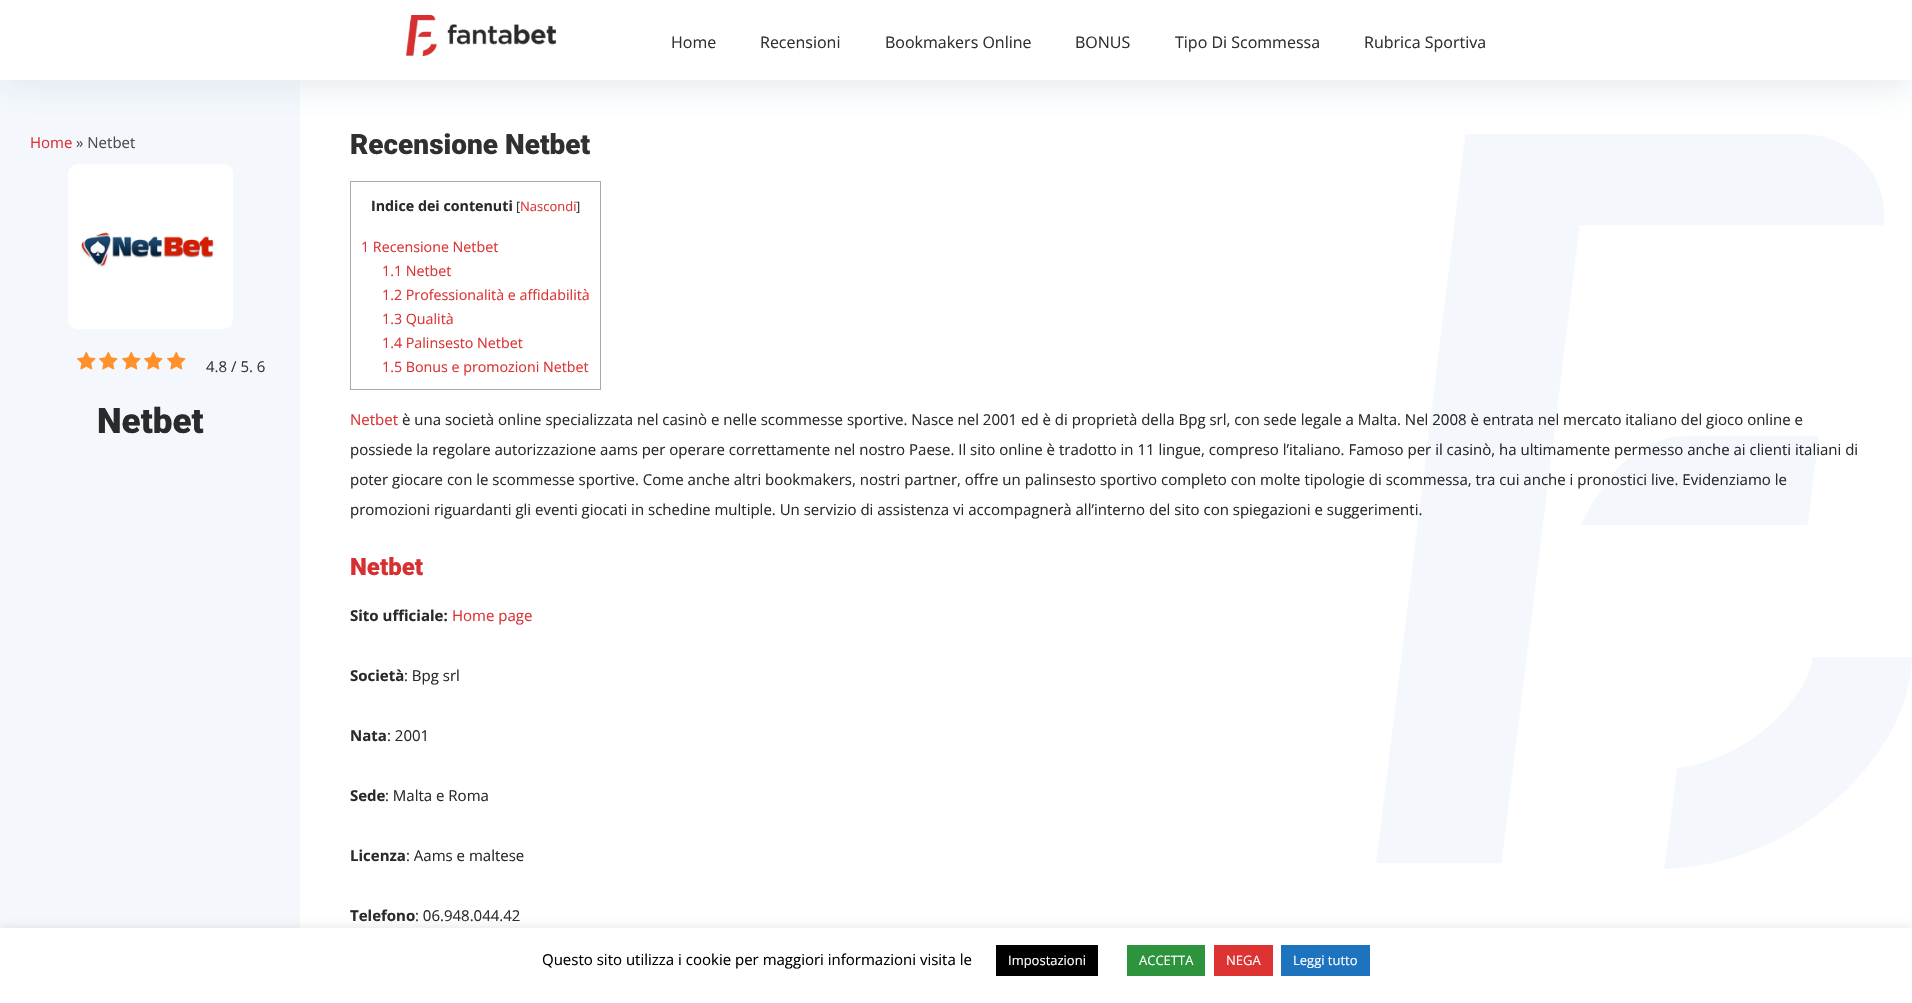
void draw(SkCanvas* canvas) {
    SkPaint paint;
    paint.setAntiAlias(true);
    auto face = [&](const char* family, int weight, float size, bool italic = false) {
        SkFontStyle style(weight, SkFontStyle::kNormal_Width,
            italic ? SkFontStyle::kItalic_Slant : SkFontStyle::kUpright_Slant);
        SkFont result(fontMgr->matchFamilyStyle(family, style), size);
        result.setSubpixel(true);
        return result;
    };
    auto write = [&](const char* s, float x, float y, const SkFont& font, SkColor color) {
        SkPaint ink(SkColor4f::FromColor(color));
        ink.setAntiAlias(true);
        canvas->drawString(s, x, y, font, ink);
    };
    auto block = [&](float x, float y, float w, float h, SkColor color) {
        SkPaint ink(SkColor4f::FromColor(color));
        ink.setAntiAlias(true);
        canvas->drawRect(SkRect::MakeXYWH(x, y, w, h), ink);
    };
    auto paste = [&](const char* path, float x, float y, float w, float h) {
        auto image = SkImages::DeferredFromEncodedData(SkData::MakeFromFileName(path));
        canvas->drawImageRect(image, SkRect::MakeXYWH(x, y, w, h), SkSamplingOptions());
    };
    canvas->clear(SK_ColorWHITE);
    paste("pic1.png", 1376, 134, 536, 735);
    block(0, 80, 300, 848, SkColorSetRGB(244, 248, 252));
    canvas->save();
    canvas->clipRect(SkRect::MakeXYWH(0, 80, 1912, 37));
    paint.setColor(SkColorSetARGB(153, 217, 225, 234));
    paint.setMaskFilter(SkMaskFilter::MakeBlur(kNormal_SkBlurStyle, 15));
    canvas->drawRect(SkRect::MakeXYWH(0, 10, 1912, 80), paint);
    paint.setMaskFilter(nullptr);
    canvas->restore();
    paste("pic2.png", 406, 15, 150, 41);
    auto kFont1 = face("Open Sans", 400, 16);
    write("Home", 671, 48, kFont1, SkColorSetRGB(48, 48, 48));
    write("Recensioni", 760, 48, kFont1, SkColorSetRGB(48, 48, 48));
    write("Bookmakers Online", 885, 48, kFont1, SkColorSetRGB(48, 48, 48));
    write("BONUS", 1075, 48, kFont1, SkColorSetRGB(48, 48, 48));
    write("Tipo Di Scommessa", 1175, 48, kFont1, SkColorSetRGB(48, 48, 48));
    write("Rubrica Sportiva", 1364, 48, kFont1, SkColorSetRGB(48, 48, 48));
    auto kFont2 = face("Open Sans", 400, 15);
    write("Home", 30, 148, kFont2, SkColorSetRGB(221, 51, 51));
    write("» Netbet", 76, 148, kFont2, SkColorSetRGB(77, 77, 77));
    paste("pic3.png", 68, 164, 165, 165);
    paste("pic4.png", 77, 351, 19, 19);
    paste("pic4.png", 99, 351, 19, 19);
    paste("pic4.png", 122, 351, 19, 19);
    paste("pic4.png", 144, 351, 19, 19);
    paste("pic4.png", 167, 351, 19, 19);
    write("4.8 / 5. 6", 206, 372, kFont2, SkColorSetRGB(55, 55, 53));
    auto kFont3 = face("Roboto", 900, 35);
    write("Netbet", 97, 433, kFont3, SkColorSetRGB(41, 42, 43));
    auto kFont4 = face("Roboto", 900, 28);
    write("Recensione Netbet", 350, 154, kFont4, SkColorSetRGB(48, 48, 48));
    paint.setStyle(SkPaint::kStroke_Style);
    paint.setStrokeWidth(1);
    paint.setColor(SkColorSetRGB(170, 170, 170));
    canvas->drawRect(SkRect::MakeXYWH(350.5f, 181.5f, 250, 208), paint);
    auto kFont5 = face("Open Sans", 700, 14.25f);
    write("Indice dei contenuti", 371, 211, kFont5, SkColorSetRGB(41, 42, 43));
    auto kFont6 = face("Open Sans", 400, 13);
    write("[", 516, 211, kFont6, SkColorSetRGB(41, 42, 43));
    write("Nascondi", 520, 211, kFont6, SkColorSetRGB(221, 51, 51));
    write("]", 576, 211, kFont6, SkColorSetRGB(41, 42, 43));
    auto kFont7 = face("Open Sans", 400, 14.25f);
    write("1 Recensione Netbet", 361, 252, kFont7, SkColorSetRGB(221, 51, 51));
    write("1.1 Netbet", 382, 276, kFont7, SkColorSetRGB(221, 51, 51));
    write("1.2 Professionalità e affidabilità", 382, 300, kFont7, SkColorSetRGB(221, 51, 51));
    write("1.3 Qualità", 382, 324, kFont7, SkColorSetRGB(221, 51, 51));
    write("1.4 Palinsesto Netbet", 382, 348, kFont7, SkColorSetRGB(221, 51, 51));
    write("1.5 Bonus e promozioni Netbet", 382, 372, kFont7, SkColorSetRGB(221, 51, 51));
    write("Netbet", 350, 425, kFont2, SkColorSetRGB(221, 51, 51));
    write("è una società online specializzata nel casinò e nelle scommesse sportive. Nasce nel 2001 ed è di proprietà della Bpg srl, con sede legale a Malta. Nel 2008 è entrata nel mercato italiano del gioco online e", 402, 425, kFont2, SkColorSetRGB(41, 42, 43));
    write("possiede la regolare autorizzazione aams per operare correttamente nel nostro Paese. Il sito online è tradotto in 11 lingue, compreso l’italiano. Famoso per il casinò, ha ultimamente permesso anche ai clienti italiani di", 350, 455, kFont2, SkColorSetRGB(41, 42, 43));
    write("poter giocare con le scommesse sportive. Come anche altri bookmakers, nostri partner, offre un palinsesto sportivo completo con molte tipologie di scommessa, tra cui anche i pronostici live. Evidenziamo le", 350, 485, kFont2, SkColorSetRGB(41, 42, 43));
    write("promozioni riguardanti gli eventi giocati in schedine multiple. Un servizio di assistenza vi accompagnerà all’interno del sito con spiegazioni e suggerimenti.", 350, 515, kFont2, SkColorSetRGB(41, 42, 43));
    auto kFont8 = face("Roboto", 900, 24);
    write("Netbet", 350, 575, kFont8, SkColorSetRGB(214, 48, 49));
    auto kFont9 = face("Open Sans", 700, 15);
    write("Sito ufficiale:", 350, 621, kFont9, SkColorSetRGB(41, 42, 43));
    write("Home page", 452, 621, kFont2, SkColorSetRGB(221, 51, 51));
    write("Società", 350, 681, kFont9, SkColorSetRGB(41, 42, 43));
    write(": Bpg srl", 404, 681, kFont2, SkColorSetRGB(41, 42, 43));
    write("Nata", 350, 741, kFont9, SkColorSetRGB(41, 42, 43));
    write(": 2001", 387, 741, kFont2, SkColorSetRGB(41, 42, 43));
    write("Sede", 350, 801, kFont9, SkColorSetRGB(41, 42, 43));
    write(": Malta e Roma", 385, 801, kFont2, SkColorSetRGB(41, 42, 43));
    write("Licenza", 350, 861, kFont9, SkColorSetRGB(41, 42, 43));
    write(": Aams e maltese", 406, 861, kFont2, SkColorSetRGB(41, 42, 43));
    write("Telefono", 350, 921, kFont9, SkColorSetRGB(41, 42, 43));
    write(": 06.948.044.42", 415, 921, kFont2, SkColorSetRGB(41, 42, 43));
    paint.setStyle(SkPaint::kFill_Style);
    paint.setColor(SkColorSetARGB(77, 172, 171, 171));
    paint.setMaskFilter(SkMaskFilter::MakeBlur(kNormal_SkBlurStyle, 5));
    canvas->drawRect(SkRect::MakeXYWH(0, 927, 1912, 75), paint);
    paint.setMaskFilter(nullptr);
    block(0, 928, 1912, 75, SK_ColorWHITE);
    write("Questo sito utilizza i cookie per maggiori informazioni visita le", 542, 965, kFont2, SK_ColorBLACK);
    block(996, 945, 102, 31, SK_ColorBLACK);
    write("Impostazioni", 1008, 965, kFont6, SK_ColorWHITE);
    block(1127, 945, 78, 31, SkColorSetRGB(45, 147, 61));
    write("ACCETTA", 1139, 965, kFont6, SK_ColorWHITE);
    block(1214, 945, 59, 31, SkColorSetRGB(221, 51, 51));
    write("NEGA", 1226, 965, kFont6, SK_ColorWHITE);
    block(1281, 945, 89, 31, SkColorSetRGB(30, 115, 190));
    write("Leggi tutto", 1293, 965, kFont6, SK_ColorWHITE);
}
